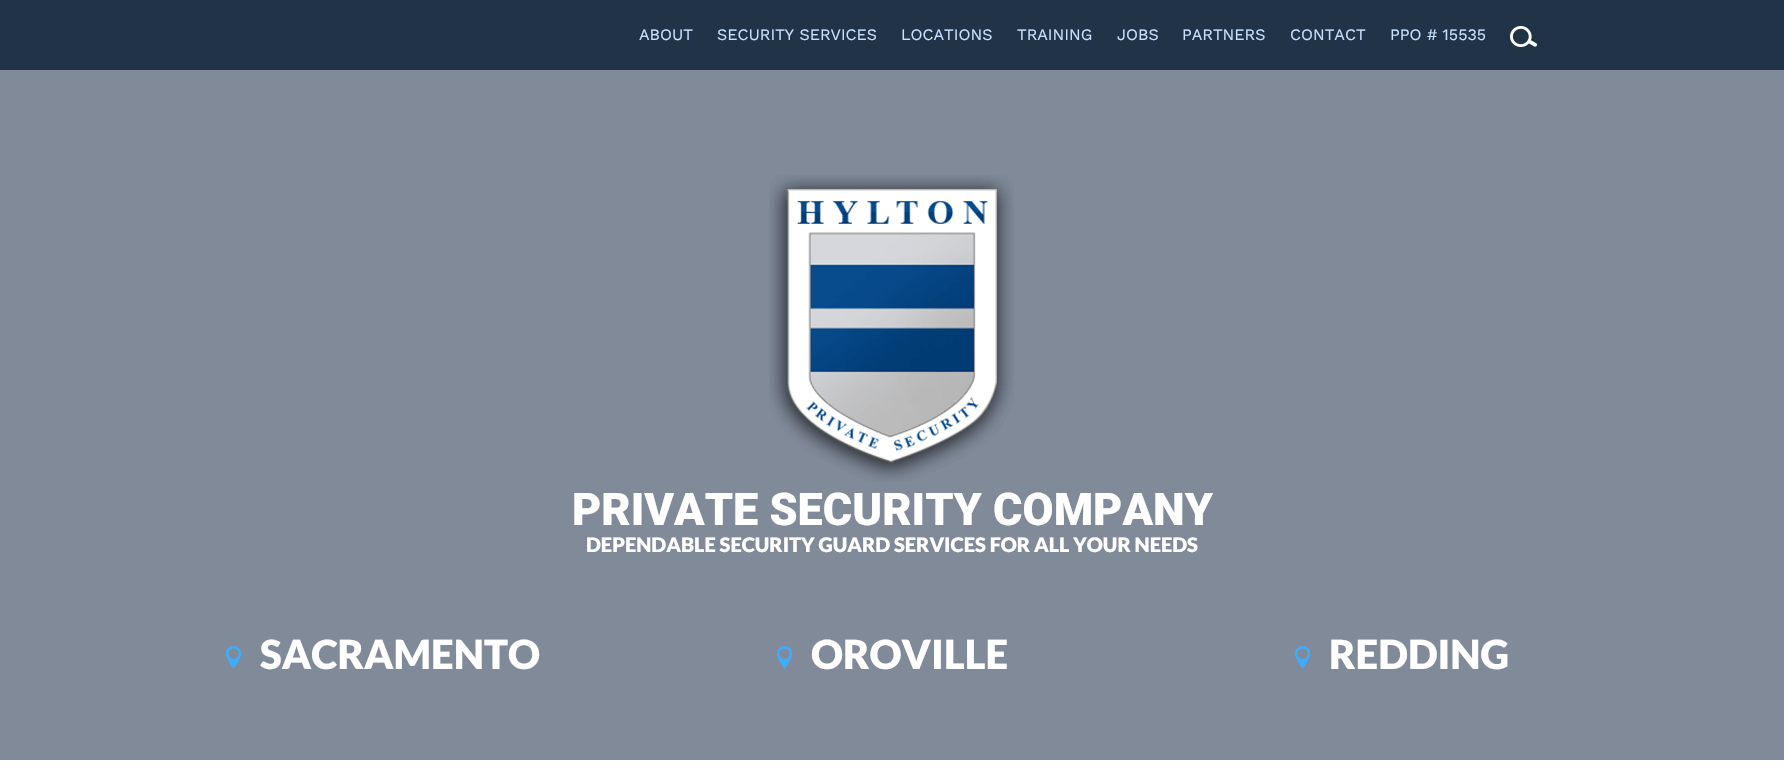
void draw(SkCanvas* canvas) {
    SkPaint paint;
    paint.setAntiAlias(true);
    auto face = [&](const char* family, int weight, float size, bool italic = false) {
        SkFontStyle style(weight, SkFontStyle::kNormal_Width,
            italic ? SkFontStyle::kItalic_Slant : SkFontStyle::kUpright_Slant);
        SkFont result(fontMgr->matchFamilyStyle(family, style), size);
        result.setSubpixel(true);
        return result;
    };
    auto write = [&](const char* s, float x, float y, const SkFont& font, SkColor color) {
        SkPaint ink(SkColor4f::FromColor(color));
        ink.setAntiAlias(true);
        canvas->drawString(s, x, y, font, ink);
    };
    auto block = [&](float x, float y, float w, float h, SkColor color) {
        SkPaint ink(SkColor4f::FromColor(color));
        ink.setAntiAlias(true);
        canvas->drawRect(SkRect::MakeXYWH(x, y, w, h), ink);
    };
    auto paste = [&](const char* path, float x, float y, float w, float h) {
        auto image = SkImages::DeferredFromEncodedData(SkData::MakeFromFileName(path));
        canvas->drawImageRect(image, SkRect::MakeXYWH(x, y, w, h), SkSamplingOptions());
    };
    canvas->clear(SK_ColorWHITE);
    block(0, 0, 1784, 70, SkColorSetRGB(32, 51, 71));
    auto kFont1 = face("Work Sans", 400, 16);
    write("ABOUT", 639, 40, kFont1, SkColorSetRGB(198, 226, 255));
    write("SECURITY SERVICES", 717, 40, kFont1, SkColorSetRGB(198, 226, 255));
    write("LOCATIONS", 901, 40, kFont1, SkColorSetRGB(198, 226, 255));
    write("TRAINING", 1017, 40, kFont1, SkColorSetRGB(198, 226, 255));
    write("JOBS", 1117, 40, kFont1, SkColorSetRGB(198, 226, 255));
    write("PARTNERS", 1182, 40, kFont1, SkColorSetRGB(198, 226, 255));
    write("CONTACT", 1290, 40, kFont1, SkColorSetRGB(198, 226, 255));
    write("PPO # 15535", 1390, 40, kFont1, SkColorSetRGB(198, 226, 255));
    paste("pic1.png", 1510, 26, 27, 21);
    block(0, 70, 1784, 690, SkColorSetRGB(128, 138, 153));
    paste("pic2.png", 769, 175, 245, 307);
    auto kFont2 = face("Roboto", 900, 45);
    write("PRIVATE SECURITY COMPANY", 572, 525, kFont2, SK_ColorWHITE);
    auto kFont3 = face("Lato", 900, 20);
    write("DEPENDABLE SECURITY GUARD SERVICES FOR ALL YOUR NEEDS", 586, 552, kFont3, SK_ColorWHITE);
    paste("pic3.png", 226, 646, 15, 23);
    auto kFont4 = face("Lato", 900, 40);
    write("SACRAMENTO", 260, 669, kFont4, SK_ColorWHITE);
    paste("pic3.png", 777, 646, 15, 23);
    write("OROVILLE", 811, 669, kFont4, SK_ColorWHITE);
    paste("pic3.png", 1295, 646, 15, 23);
    write("REDDING", 1329, 669, kFont4, SK_ColorWHITE);
}
